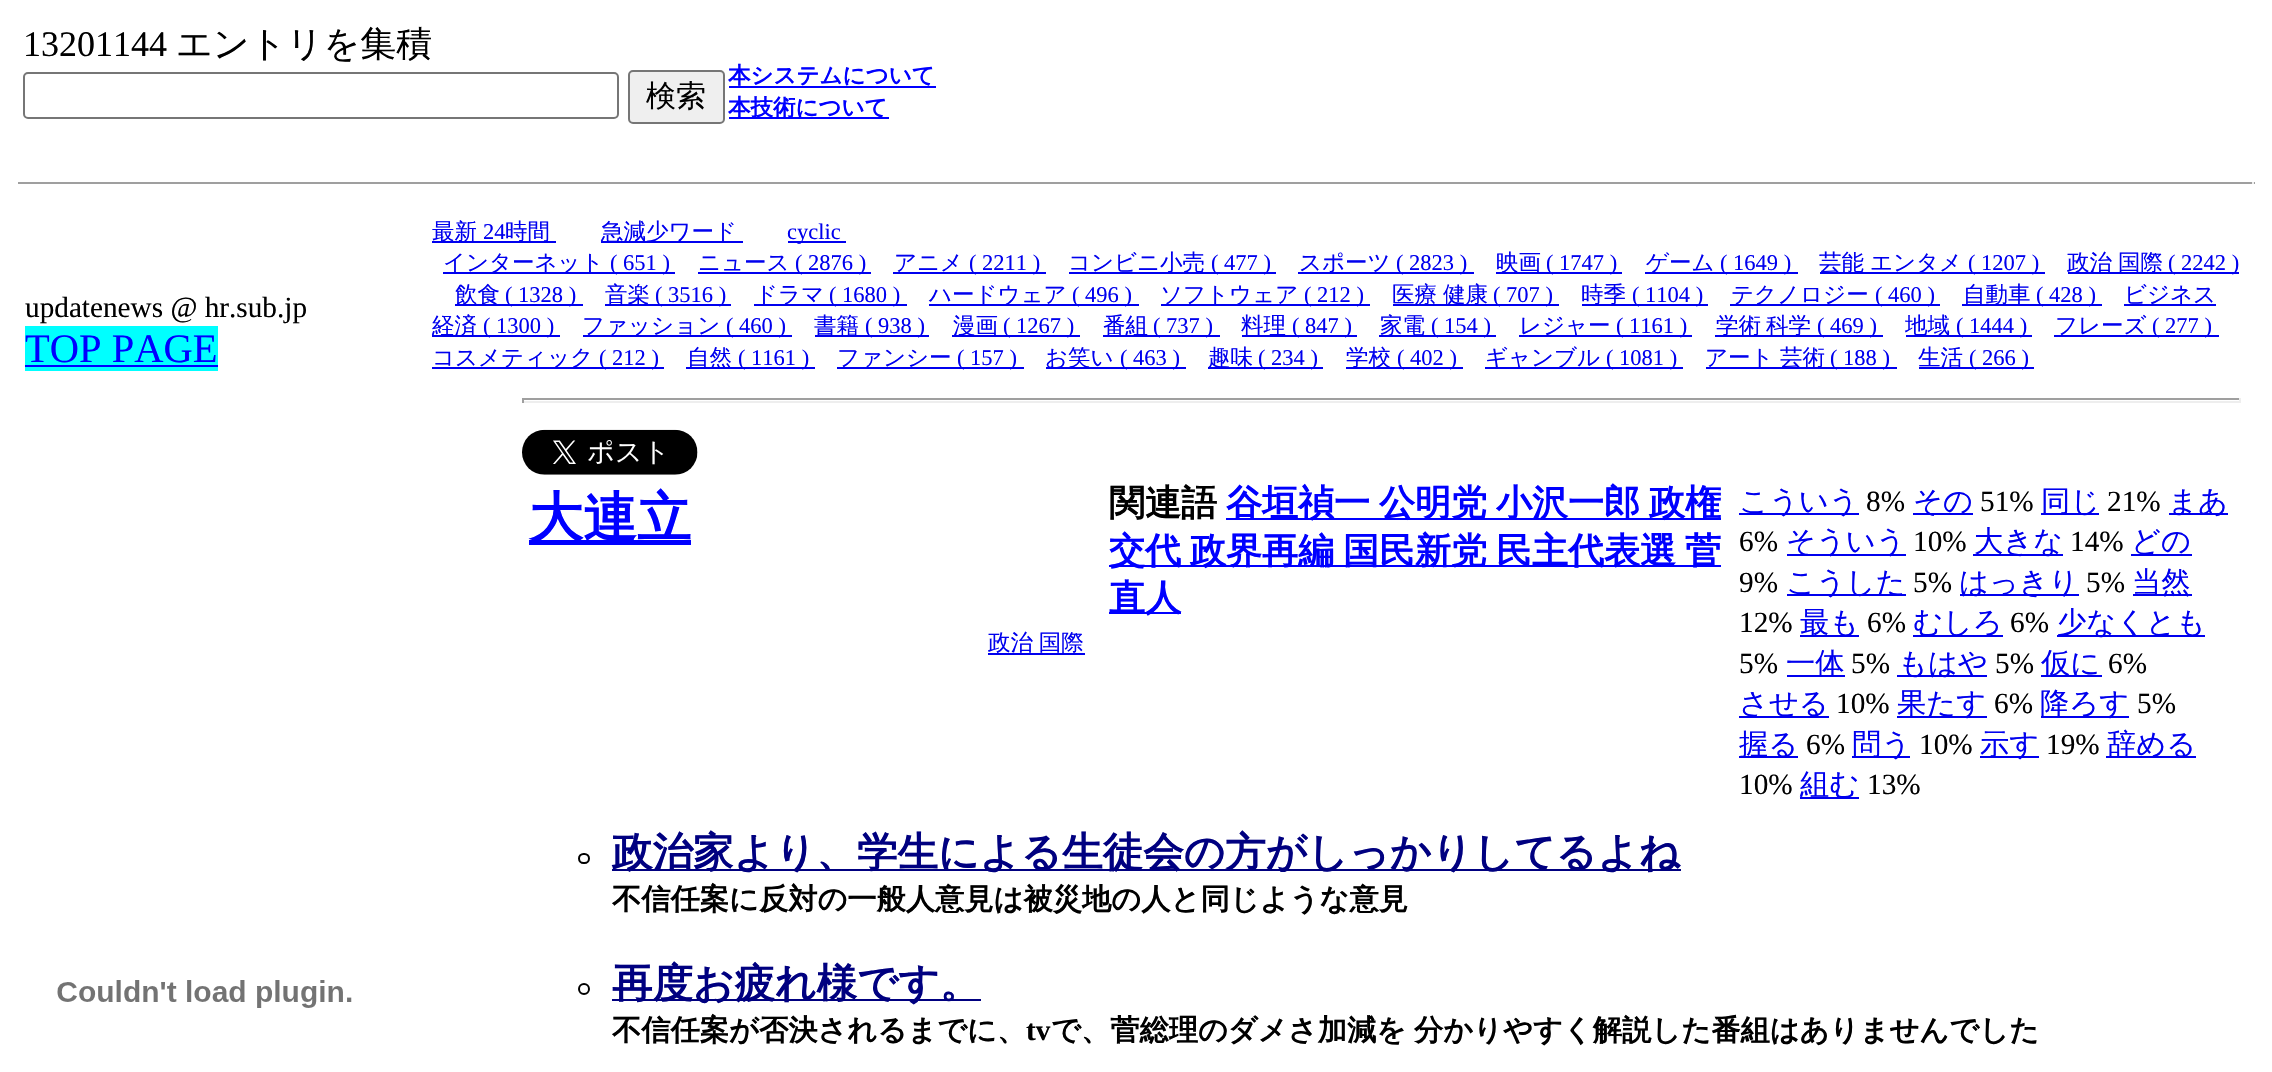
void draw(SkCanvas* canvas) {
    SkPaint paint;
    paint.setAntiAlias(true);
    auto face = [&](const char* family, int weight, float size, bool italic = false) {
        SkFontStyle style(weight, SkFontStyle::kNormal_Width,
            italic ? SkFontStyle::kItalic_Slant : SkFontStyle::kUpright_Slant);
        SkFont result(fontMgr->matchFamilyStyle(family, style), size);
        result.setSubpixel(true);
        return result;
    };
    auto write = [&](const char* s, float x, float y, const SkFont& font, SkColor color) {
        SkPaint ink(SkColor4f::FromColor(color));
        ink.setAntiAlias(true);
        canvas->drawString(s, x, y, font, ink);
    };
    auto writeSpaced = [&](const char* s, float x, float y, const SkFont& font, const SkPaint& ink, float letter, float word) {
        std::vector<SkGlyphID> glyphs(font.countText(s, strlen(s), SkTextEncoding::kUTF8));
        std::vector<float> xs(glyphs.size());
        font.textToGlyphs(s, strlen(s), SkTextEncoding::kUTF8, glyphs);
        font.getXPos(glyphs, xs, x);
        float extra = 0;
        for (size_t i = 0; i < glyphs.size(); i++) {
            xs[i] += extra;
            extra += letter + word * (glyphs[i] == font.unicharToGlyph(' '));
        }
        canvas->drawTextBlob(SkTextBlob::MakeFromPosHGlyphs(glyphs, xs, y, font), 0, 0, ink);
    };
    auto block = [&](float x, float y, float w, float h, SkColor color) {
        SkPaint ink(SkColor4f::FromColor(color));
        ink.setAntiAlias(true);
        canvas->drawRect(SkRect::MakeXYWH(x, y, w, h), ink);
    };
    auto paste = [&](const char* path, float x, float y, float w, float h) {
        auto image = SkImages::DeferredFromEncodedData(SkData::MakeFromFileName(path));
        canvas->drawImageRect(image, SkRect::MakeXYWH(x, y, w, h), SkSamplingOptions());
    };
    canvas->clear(SK_ColorWHITE);
    auto kFont1 = face("Liberation Serif", 400, 36);
    write("13201144", 23, 56, kFont1, SK_ColorBLACK);
    auto kFont2 = face("WenQuanYi Zen Hei", 500, 36);
    write("エントリを集積", 176, 56, kFont2, SK_ColorBLACK);
    paint.setStyle(SkPaint::kStroke_Style);
    paint.setStrokeWidth(2);
    paint.setColor(SkColorSetRGB(118, 118, 118));
    canvas->drawRoundRect(SkRect::MakeXYWH(24, 73, 594, 45), 4, 4, paint);
    paint.setStyle(SkPaint::kFill_Style);
    paint.setColor(SkColorSetRGB(239, 239, 239));
    canvas->drawRoundRect(SkRect::MakeXYWH(629, 71, 95, 52), 4, 4, paint);
    paint.setStyle(SkPaint::kStroke_Style);
    paint.setColor(SkColorSetRGB(118, 118, 118));
    canvas->drawRoundRect(SkRect::MakeXYWH(629, 71, 95, 52), 4, 4, paint);
    auto kFont3 = face("WenQuanYi Zen Hei", 500, 30);
    write("検索", 646, 106, kFont3, SK_ColorBLACK);
    auto kFont4 = face("WenQuanYi Zen Hei", 700, 22.5f);
    write("本システムについて", 728, 83, kFont4, SkColorSetRGB(0, 0, 255));
    block(729, 86, 207, 2, SkColorSetRGB(0, 0, 255));
    block(729, 117, 160, 2, SkColorSetRGB(0, 0, 255));
    write("本技術について", 728, 115, kFont4, SkColorSetRGB(0, 0, 255));
    block(18, 182, 2237, 2, SkColorSetRGB(159, 159, 159));
    block(2252, 182, 2, 2, SkColorSetRGB(238, 238, 238));
    auto kFont5 = face("Liberation Serif", 400, 29.25f);
    write("updatenews @ hr.sub.jp", 25, 317, kFont5, SK_ColorBLACK);
    block(25, 326, 193, 45, SkColorSetRGB(0, 255, 255));
    auto kFont6 = face("Liberation Serif", 400, 40.5f);
    write("TOP PAGE", 25, 362, kFont6, SkColorSetRGB(0, 0, 255));
    block(25, 365, 193, 2, SkColorSetRGB(0, 0, 255));
    paste("pic1.png", 57, 980, 295, 28);
    block(432, 241, 124, 2, SkColorSetRGB(0, 0, 238));
    auto kFont7 = face("WenQuanYi Zen Hei", 500, 22.5f);
    write("最新", 432, 239, kFont7, SkColorSetRGB(0, 0, 238));
    auto kFont8 = face("Liberation Serif", 400, 22.5f);
    write("24", 483, 239, kFont8, SkColorSetRGB(0, 0, 238));
    write("時間", 505, 239, kFont7, SkColorSetRGB(0, 0, 238));
    block(601, 241, 142, 2, SkColorSetRGB(0, 0, 238));
    write("急減少ワード", 601, 239, kFont7, SkColorSetRGB(0, 0, 238));
    block(788, 241, 58, 2, SkColorSetRGB(0, 0, 238));
    write("cyclic", 787, 239, kFont8, SkColorSetRGB(0, 0, 238));
    block(443, 272, 232, 2, SkColorSetRGB(0, 0, 238));
    write("インターネット", 443, 270, kFont7, SkColorSetRGB(0, 0, 238));
    write("( 651 )", 610, 270, kFont8, SkColorSetRGB(0, 0, 238));
    write("ニュース", 698, 270, kFont7, SkColorSetRGB(0, 0, 238));
    block(698, 272, 173, 2, SkColorSetRGB(0, 0, 238));
    write("( 2876 )", 795, 270, kFont8, SkColorSetRGB(0, 0, 238));
    write("アニメ", 894, 270, kFont7, SkColorSetRGB(0, 0, 238));
    block(893, 272, 153, 2, SkColorSetRGB(0, 0, 238));
    write("( 2211 )", 969, 270, kFont8, SkColorSetRGB(0, 0, 238));
    block(1069, 272, 207, 2, SkColorSetRGB(0, 0, 238));
    write("コンビニ小売", 1068, 270, kFont7, SkColorSetRGB(0, 0, 238));
    write("( 477 )", 1211, 270, kFont8, SkColorSetRGB(0, 0, 238));
    block(1298, 272, 176, 2, SkColorSetRGB(0, 0, 238));
    write("スポーツ", 1299, 270, kFont7, SkColorSetRGB(0, 0, 238));
    write("( 2823 )", 1396, 270, kFont8, SkColorSetRGB(0, 0, 238));
    block(1496, 272, 126, 2, SkColorSetRGB(0, 0, 238));
    write("映画", 1496, 270, kFont7, SkColorSetRGB(0, 0, 238));
    write("( 1747 )", 1546, 270, kFont8, SkColorSetRGB(0, 0, 238));
    block(1645, 272, 153, 2, SkColorSetRGB(0, 0, 238));
    write("ゲーム", 1646, 270, kFont7, SkColorSetRGB(0, 0, 238));
    write("( 1649 )", 1720, 270, kFont8, SkColorSetRGB(0, 0, 238));
    block(1820, 272, 225, 2, SkColorSetRGB(0, 0, 238));
    write("芸能", 1819, 270, kFont7, SkColorSetRGB(0, 0, 238));
    write("エンタメ", 1870, 270, kFont7, SkColorSetRGB(0, 0, 238));
    write("( 1207 )", 1968, 270, kFont8, SkColorSetRGB(0, 0, 238));
    block(2068, 272, 171, 2, SkColorSetRGB(0, 0, 238));
    write("政治", 2067, 270, kFont7, SkColorSetRGB(0, 0, 238));
    write("国際", 2118, 270, kFont7, SkColorSetRGB(0, 0, 238));
    write("( 2242 )", 2168, 270, kFont8, SkColorSetRGB(0, 0, 238));
    block(455, 304, 128, 2, SkColorSetRGB(0, 0, 238));
    write("飲食", 455, 302, kFont7, SkColorSetRGB(0, 0, 238));
    write("( 1328 )", 505, 302, kFont8, SkColorSetRGB(0, 0, 238));
    block(605, 304, 126, 2, SkColorSetRGB(0, 0, 238));
    write("音楽", 605, 302, kFont7, SkColorSetRGB(0, 0, 238));
    write("( 3516 )", 655, 302, kFont8, SkColorSetRGB(0, 0, 238));
    block(754, 304, 153, 2, SkColorSetRGB(0, 0, 238));
    write("ドラマ", 755, 302, kFont7, SkColorSetRGB(0, 0, 238));
    write("( 1680 )", 829, 302, kFont8, SkColorSetRGB(0, 0, 238));
    block(929, 304, 210, 2, SkColorSetRGB(0, 0, 238));
    write("ハードウェア", 929, 302, kFont7, SkColorSetRGB(0, 0, 238));
    write("( 496 )", 1072, 302, kFont8, SkColorSetRGB(0, 0, 238));
    block(1161, 304, 209, 2, SkColorSetRGB(0, 0, 238));
    write("ソフトウェア", 1160, 302, kFont7, SkColorSetRGB(0, 0, 238));
    write("( 212 )", 1304, 302, kFont8, SkColorSetRGB(0, 0, 238));
    block(1393, 304, 166, 2, SkColorSetRGB(0, 0, 238));
    write("医療", 1392, 302, kFont7, SkColorSetRGB(0, 0, 238));
    write("健康", 1443, 302, kFont7, SkColorSetRGB(0, 0, 238));
    write("( 707 )", 1493, 302, kFont8, SkColorSetRGB(0, 0, 238));
    block(1582, 304, 126, 2, SkColorSetRGB(0, 0, 238));
    write("時季", 1581, 302, kFont7, SkColorSetRGB(0, 0, 238));
    write("( 1104 )", 1632, 302, kFont8, SkColorSetRGB(0, 0, 238));
    block(1730, 304, 210, 2, SkColorSetRGB(0, 0, 238));
    write("テクノロジー", 1731, 302, kFont7, SkColorSetRGB(0, 0, 238));
    write("( 460 )", 1875, 302, kFont8, SkColorSetRGB(0, 0, 238));
    block(1962, 304, 140, 2, SkColorSetRGB(0, 0, 238));
    write("自動車", 1963, 302, kFont7, SkColorSetRGB(0, 0, 238));
    write("( 428 )", 2036, 302, kFont8, SkColorSetRGB(0, 0, 238));
    block(2124, 304, 92, 2, SkColorSetRGB(0, 0, 238));
    write("ビジネス", 2124, 302, kFont7, SkColorSetRGB(0, 0, 238));
    block(432, 335, 128, 2, SkColorSetRGB(0, 0, 238));
    write("経済", 432, 333, kFont7, SkColorSetRGB(0, 0, 238));
    write("( 1300 )", 483, 333, kFont8, SkColorSetRGB(0, 0, 238));
    block(583, 335, 209, 2, SkColorSetRGB(0, 0, 238));
    write("ファッション", 582, 333, kFont7, SkColorSetRGB(0, 0, 238));
    write("( 460 )", 726, 333, kFont8, SkColorSetRGB(0, 0, 238));
    block(815, 335, 114, 2, SkColorSetRGB(0, 0, 238));
    write("書籍", 814, 333, kFont7, SkColorSetRGB(0, 0, 238));
    write("( 938 )", 865, 333, kFont8, SkColorSetRGB(0, 0, 238));
    block(952, 335, 128, 2, SkColorSetRGB(0, 0, 238));
    write("漫画", 953, 333, kFont7, SkColorSetRGB(0, 0, 238));
    write("( 1267 )", 1003, 333, kFont8, SkColorSetRGB(0, 0, 238));
    block(1103, 335, 117, 2, SkColorSetRGB(0, 0, 238));
    write("番組", 1103, 333, kFont7, SkColorSetRGB(0, 0, 238));
    write("( 737 )", 1153, 333, kFont8, SkColorSetRGB(0, 0, 238));
    block(1242, 335, 115, 2, SkColorSetRGB(0, 0, 238));
    write("料理", 1241, 333, kFont7, SkColorSetRGB(0, 0, 238));
    write("( 847 )", 1292, 333, kFont8, SkColorSetRGB(0, 0, 238));
    block(1379, 335, 117, 2, SkColorSetRGB(0, 0, 238));
    write("家電", 1380, 333, kFont7, SkColorSetRGB(0, 0, 238));
    write("( 154 )", 1431, 333, kFont8, SkColorSetRGB(0, 0, 238));
    block(1519, 335, 173, 2, SkColorSetRGB(0, 0, 238));
    write("レジャー", 1519, 333, kFont7, SkColorSetRGB(0, 0, 238));
    write("( 1161 )", 1616, 333, kFont8, SkColorSetRGB(0, 0, 238));
    block(1715, 335, 168, 2, SkColorSetRGB(0, 0, 238));
    write("学術", 1716, 333, kFont7, SkColorSetRGB(0, 0, 238));
    write("科学", 1766, 333, kFont7, SkColorSetRGB(0, 0, 238));
    write("( 469 )", 1817, 333, kFont8, SkColorSetRGB(0, 0, 238));
    block(1906, 335, 126, 2, SkColorSetRGB(0, 0, 238));
    write("地域", 1905, 333, kFont7, SkColorSetRGB(0, 0, 238));
    write("( 1444 )", 1956, 333, kFont8, SkColorSetRGB(0, 0, 238));
    block(2054, 335, 165, 2, SkColorSetRGB(0, 0, 238));
    write("フレーズ", 2055, 333, kFont7, SkColorSetRGB(0, 0, 238));
    write("( 277 )", 2152, 333, kFont8, SkColorSetRGB(0, 0, 238));
    block(432, 367, 232, 2, SkColorSetRGB(0, 0, 238));
    write("コスメティック", 432, 365, kFont7, SkColorSetRGB(0, 0, 238));
    write("( 212 )", 599, 365, kFont8, SkColorSetRGB(0, 0, 238));
    block(686, 367, 129, 2, SkColorSetRGB(0, 0, 238));
    write("自然", 687, 365, kFont7, SkColorSetRGB(0, 0, 238));
    write("( 1161 )", 738, 365, kFont8, SkColorSetRGB(0, 0, 238));
    block(837, 367, 187, 2, SkColorSetRGB(0, 0, 238));
    write("ファンシー", 837, 365, kFont7, SkColorSetRGB(0, 0, 238));
    write("( 157 )", 957, 365, kFont8, SkColorSetRGB(0, 0, 238));
    block(1046, 367, 140, 2, SkColorSetRGB(0, 0, 238));
    write("お笑い", 1045, 365, kFont7, SkColorSetRGB(0, 0, 238));
    write("( 463 )", 1120, 365, kFont8, SkColorSetRGB(0, 0, 238));
    block(1208, 367, 115, 2, SkColorSetRGB(0, 0, 238));
    write("趣味", 1208, 365, kFont7, SkColorSetRGB(0, 0, 238));
    write("( 234 )", 1258, 365, kFont8, SkColorSetRGB(0, 0, 238));
    block(1346, 367, 117, 2, SkColorSetRGB(0, 0, 238));
    write("学校", 1346, 365, kFont7, SkColorSetRGB(0, 0, 238));
    write("( 402 )", 1397, 365, kFont8, SkColorSetRGB(0, 0, 238));
    block(1485, 367, 198, 2, SkColorSetRGB(0, 0, 238));
    write("ギャンブル", 1485, 365, kFont7, SkColorSetRGB(0, 0, 238));
    write("( 1081 )", 1606, 365, kFont8, SkColorSetRGB(0, 0, 238));
    block(1706, 367, 191, 2, SkColorSetRGB(0, 0, 238));
    write("アート", 1705, 365, kFont7, SkColorSetRGB(0, 0, 238));
    write("芸術", 1780, 365, kFont7, SkColorSetRGB(0, 0, 238));
    write("( 188 )", 1830, 365, kFont8, SkColorSetRGB(0, 0, 238));
    block(1919, 367, 115, 2, SkColorSetRGB(0, 0, 238));
    write("生活", 1918, 365, kFont7, SkColorSetRGB(0, 0, 238));
    write("( 266 )", 1969, 365, kFont8, SkColorSetRGB(0, 0, 238));
    block(522, 398, 1719, 2, SkColorSetRGB(159, 159, 159));
    block(2239, 398, 2, 5, SkColorSetRGB(238, 238, 238));
    block(522, 401, 1719, 2, SkColorSetRGB(238, 238, 238));
    block(522, 398, 2, 5, SkColorSetRGB(159, 159, 159));
    paste("pic2.png", 522, 429, 176, 46);
    block(529, 540, 162, 5, SkColorSetRGB(0, 0, 255));
    auto kFont9 = face("WenQuanYi Zen Hei", 700, 54);
    write("大連立", 529, 536, kFont9, SkColorSetRGB(0, 0, 255));
    auto kFont10 = face("WenQuanYi Zen Hei", 700, 36);
    write("関連語", 1109, 515, kFont10, SK_ColorBLACK);
    block(1226, 518, 495, 2, SkColorSetRGB(0, 0, 255));
    write("谷垣禎一", 1226, 515, kFont10, SkColorSetRGB(0, 0, 255));
    write("公明党", 1379, 515, kFont10, SkColorSetRGB(0, 0, 255));
    write("小沢一郎", 1496, 515, kFont10, SkColorSetRGB(0, 0, 255));
    write("政権", 1649, 515, kFont10, SkColorSetRGB(0, 0, 255));
    block(1109, 565, 612, 2, SkColorSetRGB(0, 0, 255));
    write("交代", 1109, 563, kFont10, SkColorSetRGB(0, 0, 255));
    write("政界再編", 1190, 563, kFont10, SkColorSetRGB(0, 0, 255));
    write("国民新党", 1343, 563, kFont10, SkColorSetRGB(0, 0, 255));
    write("民主代表選", 1496, 563, kFont10, SkColorSetRGB(0, 0, 255));
    write("菅", 1685, 563, kFont10, SkColorSetRGB(0, 0, 255));
    block(1109, 612, 72, 2, SkColorSetRGB(0, 0, 255));
    write("直人", 1109, 610, kFont10, SkColorSetRGB(0, 0, 255));
    block(1739, 513, 120, 2, SkColorSetRGB(0, 0, 238));
    auto kFont11 = face("WenQuanYi Zen Hei", 500, 29.25f);
    write("こういう", 1739, 511, kFont11, SkColorSetRGB(0, 0, 238));
    write("8%", 1866, 511, kFont5, SK_ColorBLACK);
    block(1913, 513, 60, 2, SkColorSetRGB(0, 0, 238));
    write("その", 1913, 511, kFont11, SkColorSetRGB(0, 0, 238));
    write("51%", 1980, 511, kFont5, SK_ColorBLACK);
    block(2041, 513, 58, 2, SkColorSetRGB(0, 0, 238));
    write("同じ", 2041, 511, kFont11, SkColorSetRGB(0, 0, 238));
    write("21%", 2107, 511, kFont5, SK_ColorBLACK);
    block(2169, 513, 59, 2, SkColorSetRGB(0, 0, 238));
    write("まあ", 2168, 511, kFont11, SkColorSetRGB(0, 0, 238));
    write("6%", 1739, 551, kFont5, SK_ColorBLACK);
    block(1787, 554, 119, 2, SkColorSetRGB(0, 0, 238));
    write("そういう", 1786, 551, kFont11, SkColorSetRGB(0, 0, 238));
    write("10%", 1913, 551, kFont5, SK_ColorBLACK);
    block(1973, 554, 90, 2, SkColorSetRGB(0, 0, 238));
    write("大きな", 1974, 551, kFont11, SkColorSetRGB(0, 0, 238));
    write("14%", 2070, 551, kFont5, SK_ColorBLACK);
    block(2131, 554, 61, 2, SkColorSetRGB(0, 0, 238));
    write("どの", 2131, 551, kFont11, SkColorSetRGB(0, 0, 238));
    write("9%", 1739, 592, kFont5, SK_ColorBLACK);
    block(1787, 594, 119, 2, SkColorSetRGB(0, 0, 238));
    write("こうした", 1786, 592, kFont11, SkColorSetRGB(0, 0, 238));
    write("5%", 1913, 592, kFont5, SK_ColorBLACK);
    block(1960, 594, 119, 2, SkColorSetRGB(0, 0, 238));
    write("はっきり", 1959, 592, kFont11, SkColorSetRGB(0, 0, 238));
    write("5%", 2086, 592, kFont5, SK_ColorBLACK);
    block(2133, 594, 59, 2, SkColorSetRGB(0, 0, 238));
    write("当然", 2132, 592, kFont11, SkColorSetRGB(0, 0, 238));
    write("12%", 1739, 632, kFont5, SK_ColorBLACK);
    block(1800, 635, 59, 2, SkColorSetRGB(0, 0, 238));
    write("最も", 1800, 632, kFont11, SkColorSetRGB(0, 0, 238));
    write("6%", 1867, 632, kFont5, SK_ColorBLACK);
    block(1913, 635, 90, 2, SkColorSetRGB(0, 0, 238));
    write("むしろ", 1913, 632, kFont11, SkColorSetRGB(0, 0, 238));
    write("6%", 2010, 632, kFont5, SK_ColorBLACK);
    block(2057, 635, 148, 2, SkColorSetRGB(0, 0, 238));
    write("少なくとも", 2057, 632, kFont11, SkColorSetRGB(0, 0, 238));
    write("5%", 1739, 673, kFont5, SK_ColorBLACK);
    block(1787, 675, 58, 2, SkColorSetRGB(0, 0, 238));
    write("一体", 1786, 673, kFont11, SkColorSetRGB(0, 0, 238));
    write("5%", 1851, 673, kFont5, SK_ColorBLACK);
    block(1897, 675, 90, 2, SkColorSetRGB(0, 0, 238));
    write("もはや", 1898, 673, kFont11, SkColorSetRGB(0, 0, 238));
    write("5%", 1995, 673, kFont5, SK_ColorBLACK);
    block(2041, 675, 61, 2, SkColorSetRGB(0, 0, 238));
    write("仮に", 2041, 673, kFont11, SkColorSetRGB(0, 0, 238));
    write("6%", 2108, 673, kFont5, SK_ColorBLACK);
    block(1739, 716, 90, 2, SkColorSetRGB(0, 0, 238));
    write("させる", 1739, 713, kFont11, SkColorSetRGB(0, 0, 238));
    write("10%", 1836, 713, kFont5, SK_ColorBLACK);
    block(1897, 716, 90, 2, SkColorSetRGB(0, 0, 238));
    write("果たす", 1897, 713, kFont11, SkColorSetRGB(0, 0, 238));
    write("6%", 1994, 713, kFont5, SK_ColorBLACK);
    block(2041, 716, 88, 2, SkColorSetRGB(0, 0, 238));
    write("降ろす", 2040, 713, kFont11, SkColorSetRGB(0, 0, 238));
    write("5%", 2137, 713, kFont5, SK_ColorBLACK);
    block(1739, 756, 59, 2, SkColorSetRGB(0, 0, 238));
    write("握る", 1739, 754, kFont11, SkColorSetRGB(0, 0, 238));
    write("6%", 1806, 754, kFont5, SK_ColorBLACK);
    block(1852, 756, 58, 2, SkColorSetRGB(0, 0, 238));
    write("問う", 1852, 754, kFont11, SkColorSetRGB(0, 0, 238));
    write("10%", 1919, 754, kFont5, SK_ColorBLACK);
    block(1980, 756, 59, 2, SkColorSetRGB(0, 0, 238));
    write("示す", 1980, 754, kFont11, SkColorSetRGB(0, 0, 238));
    write("19%", 2046, 754, kFont5, SK_ColorBLACK);
    block(2106, 756, 90, 2, SkColorSetRGB(0, 0, 238));
    write("辞める", 2107, 754, kFont11, SkColorSetRGB(0, 0, 238));
    write("10%", 1739, 794, kFont5, SK_ColorBLACK);
    block(1800, 797, 59, 2, SkColorSetRGB(0, 0, 238));
    write("組む", 1800, 794, kFont11, SkColorSetRGB(0, 0, 238));
    write("13%", 1867, 794, kFont5, SK_ColorBLACK);
    block(988, 653, 97, 2, SkColorSetRGB(0, 0, 238));
    paint.setStyle(SkPaint::kFill_Style);
    paint.setColor(SkColorSetRGB(0, 0, 238));
    writeSpaced("政治 国際", 988, 650, kFont7, paint, 0, -1);
    paint.setStyle(SkPaint::kStroke_Style);
    paint.setColor(SK_ColorBLACK);
    canvas->drawRoundRect(SkRect::MakeXYWH(579, 854, 10, 9), 4.5f, 4.5f, paint);
    block(612, 869, 1069, 2, SkColorSetRGB(0, 0, 128));
    auto kFont12 = face("WenQuanYi Zen Hei", 700, 40.5f);
    write("政治家より、学生による生徒会の方がしっかりしてるよね", 612, 866, kFont12, SkColorSetRGB(0, 0, 128));
    auto kFont13 = face("WenQuanYi Zen Hei", 700, 29.25f);
    write("不信任案に反対の一般人意見は被災地の人と同じような意見", 612, 909, kFont13, SK_ColorBLACK);
    canvas->drawCircle(584, 989, 5, paint);
    block(612, 999, 369, 2, SkColorSetRGB(0, 0, 128));
    write("再度お疲れ様です。", 612, 997, kFont12, SkColorSetRGB(0, 0, 128));
    write("不信任案が否決されるまでに、", 612, 1040, kFont13, SK_ColorBLACK);
    auto kFont14 = face("Liberation Serif", 700, 29.25f);
    write("tv", 1026, 1040, kFont14, SK_ColorBLACK);
    paint.setStyle(SkPaint::kFill_Style);
    writeSpaced("で、菅総理のダメさ加減を 分かりやすく解説した番組はありませんでした", 1051, 1040, kFont13, paint, 0, -1);
}
